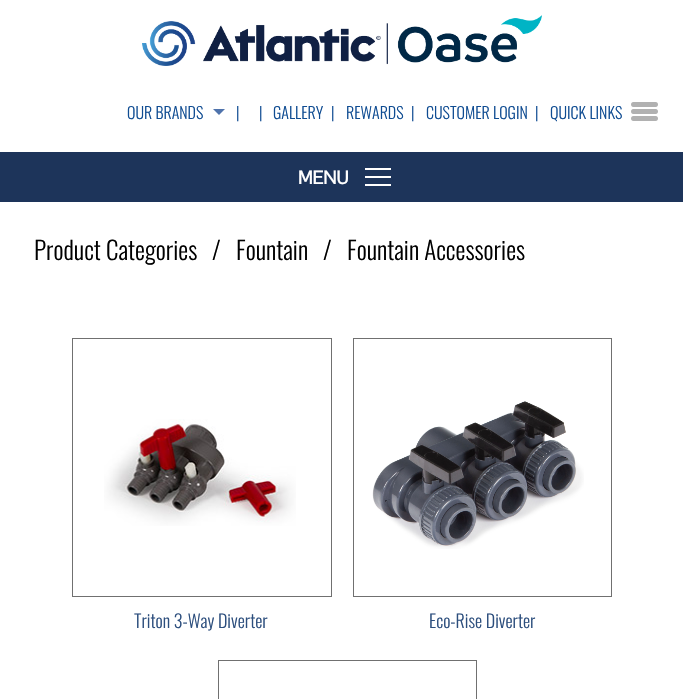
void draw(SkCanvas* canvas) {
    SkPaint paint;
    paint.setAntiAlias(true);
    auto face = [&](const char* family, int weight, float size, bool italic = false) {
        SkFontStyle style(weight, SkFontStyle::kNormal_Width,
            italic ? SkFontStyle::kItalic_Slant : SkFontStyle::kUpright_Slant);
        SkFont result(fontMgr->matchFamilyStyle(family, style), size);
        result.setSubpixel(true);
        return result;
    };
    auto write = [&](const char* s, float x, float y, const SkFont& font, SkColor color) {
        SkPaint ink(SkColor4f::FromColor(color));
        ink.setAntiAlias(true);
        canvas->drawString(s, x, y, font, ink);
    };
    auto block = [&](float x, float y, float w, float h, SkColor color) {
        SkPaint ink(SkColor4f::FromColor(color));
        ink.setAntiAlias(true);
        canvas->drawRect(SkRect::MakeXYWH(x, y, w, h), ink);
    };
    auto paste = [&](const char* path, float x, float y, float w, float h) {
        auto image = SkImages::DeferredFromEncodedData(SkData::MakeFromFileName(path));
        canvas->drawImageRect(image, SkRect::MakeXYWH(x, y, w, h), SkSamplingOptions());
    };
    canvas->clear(SK_ColorWHITE);
    paste("pic1.png", 142, 15, 400, 51);
    auto kFont1 = face("Oswald", 300, 16);
    write("OUR BRANDS", 127, 119, kFont1, SkColorSetRGB(15, 76, 146));
    paint.setColor(SkColorSetRGB(79, 115, 172));
    canvas->drawPath(SkPathBuilder().moveTo(213, 109).lineTo(225, 109).lineTo(219, 115).close().detach(), paint);
    write("|", 236, 119, kFont1, SkColorSetRGB(15, 76, 146));
    write("|", 259, 119, kFont1, SkColorSetRGB(15, 76, 146));
    write("GALLERY", 273, 119, kFont1, SkColorSetRGB(15, 76, 146));
    write("|", 331, 119, kFont1, SkColorSetRGB(15, 76, 146));
    write("REWARDS", 346, 119, kFont1, SkColorSetRGB(15, 76, 146));
    write("|", 411, 119, kFont1, SkColorSetRGB(15, 76, 146));
    write("CUSTOMER LOGIN", 426, 119, kFont1, SkColorSetRGB(15, 76, 146));
    write("|", 535, 119, kFont1, SkColorSetRGB(15, 76, 146));
    write("QUICK LINKS", 550, 119, kFont1, SkColorSetRGB(15, 76, 146));
    paste("pic2.png", 631, 102, 27, 19);
    block(0, 152, 683, 50, SkColorSetRGB(29, 52, 90));
    auto kFont2 = face("Pontano Sans", 700, 18);
    write("MENU", 298, 184, kFont2, SK_ColorWHITE);
    block(365, 168, 26, 2, SK_ColorWHITE);
    block(365, 176, 26, 2, SK_ColorWHITE);
    block(365, 184, 26, 2, SK_ColorWHITE);
    auto kFont3 = face("Oswald", 300, 25);
    write("Product Categories", 34, 260, kFont3, SK_ColorBLACK);
    write("/", 212, 260, kFont3, SK_ColorBLACK);
    write("Fountain", 236, 260, kFont3, SK_ColorBLACK);
    write("/", 323, 260, kFont3, SK_ColorBLACK);
    write("Fountain Accessories", 347, 260, kFont3, SK_ColorBLACK);
    paint.setStyle(SkPaint::kStroke_Style);
    paint.setStrokeWidth(1);
    paint.setColor(SkColorSetRGB(112, 112, 112));
    canvas->drawRect(SkRect::MakeXYWH(72.5f, 338.5f, 259, 258), paint);
    paste("pic3.png", 104, 419, 192, 107);
    auto kFont4 = face("Oswald", 300, 18);
    write("Triton 3-Way Diverter", 134, 628, kFont4, SkColorSetRGB(44, 78, 125));
    canvas->drawRect(SkRect::MakeXYWH(353.5f, 338.5f, 258, 258), paint);
    paste("pic4.png", 372, 401, 212, 148);
    write("Eco-Rise Diverter", 429, 628, kFont4, SkColorSetRGB(44, 78, 125));
    canvas->drawRect(SkRect::MakeXYWH(218.5f, 660.5f, 258, 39), paint);
}
